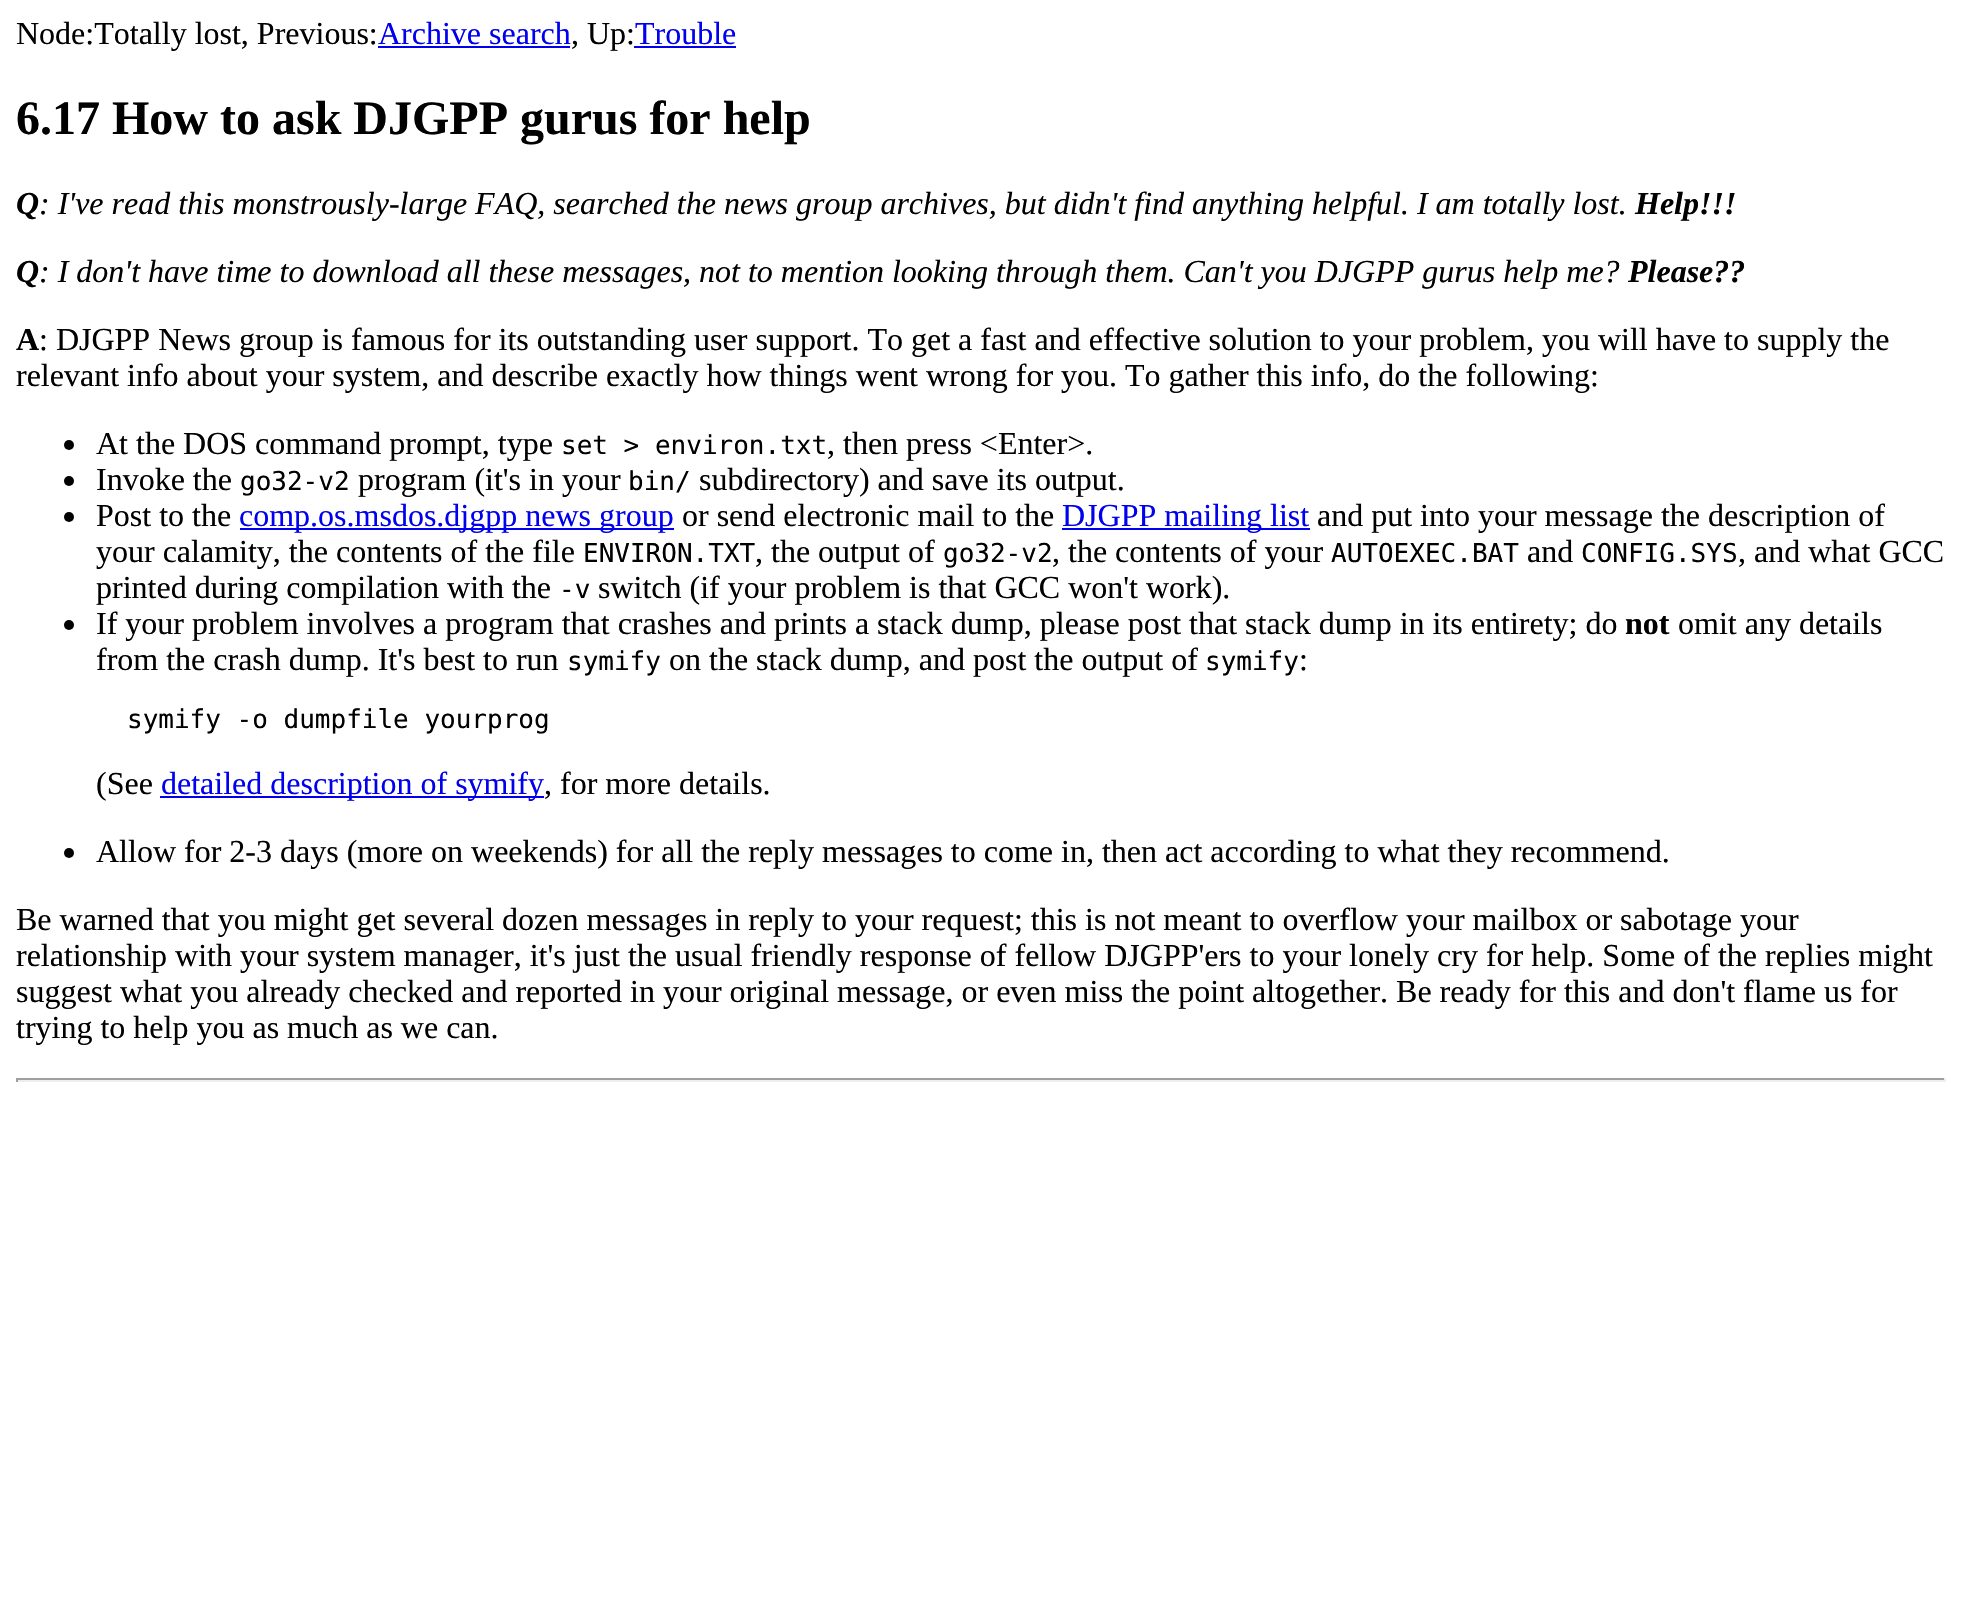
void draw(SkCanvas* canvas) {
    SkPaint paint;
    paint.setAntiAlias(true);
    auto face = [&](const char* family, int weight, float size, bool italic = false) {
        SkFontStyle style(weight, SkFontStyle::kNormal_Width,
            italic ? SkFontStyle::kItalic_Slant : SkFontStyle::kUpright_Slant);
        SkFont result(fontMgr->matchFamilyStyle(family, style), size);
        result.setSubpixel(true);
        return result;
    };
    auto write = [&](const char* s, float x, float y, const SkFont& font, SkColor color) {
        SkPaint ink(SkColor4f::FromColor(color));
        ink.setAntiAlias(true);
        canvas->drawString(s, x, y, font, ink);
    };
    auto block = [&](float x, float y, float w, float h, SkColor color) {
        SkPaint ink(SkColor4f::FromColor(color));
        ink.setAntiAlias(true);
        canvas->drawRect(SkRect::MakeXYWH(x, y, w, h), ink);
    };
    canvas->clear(SK_ColorWHITE);
    auto kFont1 = face("Liberation Serif", 400, 32);
    write("Node:Totally lost, Previous:", 16, 44, kFont1, SK_ColorBLACK);
    write("Archive search", 378, 44, kFont1, SkColorSetRGB(0, 0, 238));
    block(378, 46, 192, 2, SkColorSetRGB(0, 0, 238));
    write(", Up:", 571, 44, kFont1, SK_ColorBLACK);
    write("Trouble", 635, 44, kFont1, SkColorSetRGB(0, 0, 238));
    block(634, 46, 102, 2, SkColorSetRGB(0, 0, 238));
    auto kFont2 = face("Liberation Serif", 700, 48);
    write("6.17 How to ask DJGPP gurus for help", 16, 134, kFont2, SK_ColorBLACK);
    auto kFont3 = face("Liberation Serif", 700, 32, true);
    write("Q", 16, 214, kFont3, SK_ColorBLACK);
    auto kFont4 = face("Liberation Serif", 400, 32, true);
    write(": I've read this monstrously-large FAQ, searched the news group archives, but didn't find anything helpful. I am totally lost.", 39, 214, kFont4, SK_ColorBLACK);
    write("Help!!!", 1635, 214, kFont3, SK_ColorBLACK);
    write("Q", 16, 282, kFont3, SK_ColorBLACK);
    write(": I don't have time to download all these messages, not to mention looking through them. Can't you DJGPP gurus help me?", 39, 282, kFont4, SK_ColorBLACK);
    write("Please?\077", 1628, 282, kFont3, SK_ColorBLACK);
    auto kFont5 = face("Liberation Serif", 700, 32);
    write("A", 16, 350, kFont5, SK_ColorBLACK);
    write(": DJGPP News group is famous for its outstanding user support. To get a fast and effective solution to your problem, you will have to supply the", 39, 350, kFont1, SK_ColorBLACK);
    write("relevant info about your system, and describe exactly how things went wrong for you. To gather this info, do the following:", 16, 386, kFont1, SK_ColorBLACK);
    paint.setColor(SK_ColorBLACK);
    canvas->drawCircle(69, 445, 5, paint);
    write("At the DOS command prompt, type", 96, 454, kFont1, SK_ColorBLACK);
    auto kFont6 = face("DejaVu Sans Mono", 400, 26);
    write("set > environ.txt", 561, 454, kFont6, SK_ColorBLACK);
    write(", then press <Enter>.", 827, 454, kFont1, SK_ColorBLACK);
    canvas->drawCircle(69, 481, 5, paint);
    write("Invoke the", 96, 490, kFont1, SK_ColorBLACK);
    write("go32-v2", 240, 490, kFont6, SK_ColorBLACK);
    write("program (it's in your", 358, 490, kFont1, SK_ColorBLACK);
    write("bin/", 628, 490, kFont6, SK_ColorBLACK);
    write("subdirectory) and save its output.", 699, 490, kFont1, SK_ColorBLACK);
    canvas->drawCircle(69, 517, 5, paint);
    write("Post to the", 96, 526, kFont1, SK_ColorBLACK);
    block(240, 528, 434, 2, SkColorSetRGB(0, 0, 238));
    write("comp.os.msdos.djgpp news group", 239, 526, kFont1, SkColorSetRGB(0, 0, 238));
    write("or send electronic mail to the", 682, 526, kFont1, SK_ColorBLACK);
    block(1062, 528, 248, 2, SkColorSetRGB(0, 0, 238));
    write("DJGPP mailing list", 1062, 526, kFont1, SkColorSetRGB(0, 0, 238));
    write("and put into your message the description of", 1317, 526, kFont1, SK_ColorBLACK);
    write("your calamity, the contents of the file", 96, 562, kFont1, SK_ColorBLACK);
    write("ENVIRON.TXT", 583, 562, kFont6, SK_ColorBLACK);
    write(", the output of", 755, 562, kFont1, SK_ColorBLACK);
    write("go32-v2", 943, 562, kFont6, SK_ColorBLACK);
    write(", the contents of your", 1052, 562, kFont1, SK_ColorBLACK);
    write("AUTOEXEC.BAT", 1331, 562, kFont6, SK_ColorBLACK);
    write("and", 1527, 562, kFont1, SK_ColorBLACK);
    write("CONFIG.SYS", 1581, 562, kFont6, SK_ColorBLACK);
    write(", and what GCC", 1738, 562, kFont1, SK_ColorBLACK);
    write("printed during compilation with the", 96, 598, kFont1, SK_ColorBLACK);
    write("-v", 559, 598, kFont6, SK_ColorBLACK);
    write("switch (if your problem is that GCC won't work).", 598, 598, kFont1, SK_ColorBLACK);
    canvas->drawCircle(69, 625, 5, paint);
    write("If your problem involves a program that crashes and prints a stack dump, please post that stack dump in its entirety; do", 96, 634, kFont1, SK_ColorBLACK);
    write("not", 1625, 634, kFont5, SK_ColorBLACK);
    write("omit any details", 1678, 634, kFont1, SK_ColorBLACK);
    write("from the crash dump. It's best to run", 96, 670, kFont1, SK_ColorBLACK);
    write("symify", 567, 670, kFont6, SK_ColorBLACK);
    write("on the stack dump, and post the output of", 669, 670, kFont1, SK_ColorBLACK);
    write("symify", 1205, 670, kFont6, SK_ColorBLACK);
    write(":", 1299, 670, kFont1, SK_ColorBLACK);
    write("symify -o dumpfile yourprog", 127, 728, kFont6, SK_ColorBLACK);
    write("(See", 96, 794, kFont1, SK_ColorBLACK);
    block(160, 796, 384, 2, SkColorSetRGB(0, 0, 238));
    write("detailed description of symify", 161, 794, kFont1, SkColorSetRGB(0, 0, 238));
    write(", for more details.", 544, 794, kFont1, SK_ColorBLACK);
    canvas->drawCircle(69, 853, 5, paint);
    write("Allow for 2-3 days (more on weekends) for all the reply messages to come in, then act according to what they recommend.", 96, 862, kFont1, SK_ColorBLACK);
    write("Be warned that you might get several dozen messages in reply to your request; this is not meant to overflow your mailbox or sabotage your", 16, 930, kFont1, SK_ColorBLACK);
    write("relationship with your system manager, it's just the usual friendly response of fellow DJGPP'ers to your lonely cry for help. Some of the replies might", 16, 966, kFont1, SK_ColorBLACK);
    write("suggest what you already checked and reported in your original message, or even miss the point altogether. Be ready for this and don't flame us for", 16, 1002, kFont1, SK_ColorBLACK);
    write("trying to help you as much as we can.", 16, 1038, kFont1, SK_ColorBLACK);
    block(16, 1078, 1930, 2, SkColorSetRGB(159, 159, 159));
    block(1944, 1078, 2, 4, SkColorSetRGB(238, 238, 238));
    block(16, 1080, 1930, 2, SkColorSetRGB(238, 238, 238));
    block(16, 1078, 2, 4, SkColorSetRGB(159, 159, 159));
}
